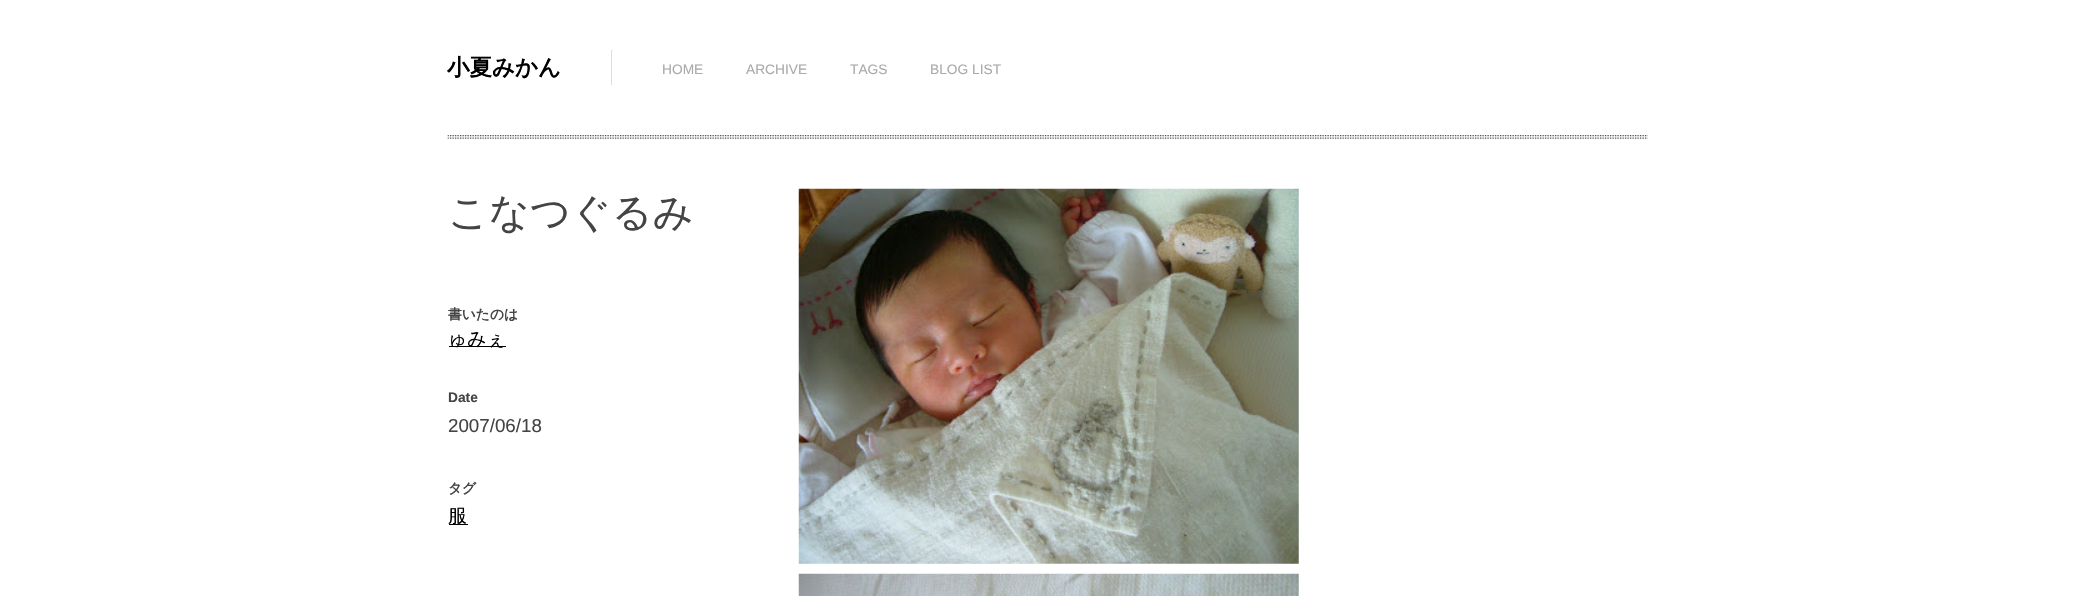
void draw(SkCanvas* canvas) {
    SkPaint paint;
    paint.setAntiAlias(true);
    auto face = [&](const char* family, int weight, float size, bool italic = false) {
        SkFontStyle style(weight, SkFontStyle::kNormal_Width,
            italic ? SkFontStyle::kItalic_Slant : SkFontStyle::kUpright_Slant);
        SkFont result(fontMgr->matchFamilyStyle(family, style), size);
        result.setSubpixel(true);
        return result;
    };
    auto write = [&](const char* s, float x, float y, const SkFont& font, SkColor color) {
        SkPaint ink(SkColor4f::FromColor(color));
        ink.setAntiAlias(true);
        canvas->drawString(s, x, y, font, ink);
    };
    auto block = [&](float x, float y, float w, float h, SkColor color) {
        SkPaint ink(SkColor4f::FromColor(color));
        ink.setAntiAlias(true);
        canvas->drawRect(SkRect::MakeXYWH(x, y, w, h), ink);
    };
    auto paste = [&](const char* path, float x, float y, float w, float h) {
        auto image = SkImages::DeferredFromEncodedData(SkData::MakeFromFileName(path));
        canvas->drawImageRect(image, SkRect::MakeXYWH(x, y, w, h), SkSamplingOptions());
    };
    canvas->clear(SK_ColorWHITE);
    block(611, 50, 1, 35, SkColorSetRGB(221, 221, 221));
    auto kFont1 = face("WenQuanYi Zen Hei", 700, 22.5f);
    write("小夏みかん", 447, 75, kFont1, SK_ColorBLACK);
    auto kFont2 = face("Liberation Sans", 400, 13.75f);
    write("HOME", 662, 74, kFont2, SkColorSetRGB(170, 170, 170));
    write("ARCHIVE", 746, 74, kFont2, SkColorSetRGB(170, 170, 170));
    write("TAGS", 850, 74, kFont2, SkColorSetRGB(170, 170, 170));
    write("BLOG LIST", 930, 74, kFont2, SkColorSetRGB(170, 170, 170));
    paste("pic1.png", 447, 135, 1201, 4);
    auto kFont3 = face("WenQuanYi Zen Hei", 500, 40);
    write("こなつぐるみ", 448, 226, kFont3, SkColorSetRGB(68, 68, 68));
    auto kFont4 = face("WenQuanYi Zen Hei", 700, 13.75f);
    write("書いたのは", 448, 319, kFont4, SkColorSetRGB(68, 68, 68));
    block(449, 346, 57, 1, SK_ColorBLACK);
    auto kFont5 = face("WenQuanYi Zen Hei", 500, 18.75f);
    write("ゅみぇ", 448, 345, kFont5, SK_ColorBLACK);
    auto kFont6 = face("Liberation Sans", 700, 13.75f);
    write("Date", 448, 402, kFont6, SkColorSetRGB(68, 68, 68));
    auto kFont7 = face("Liberation Sans", 400, 18.75f);
    write("2007/06/18", 448, 432, kFont7, SkColorSetRGB(68, 68, 68));
    write("タグ", 448, 493, kFont4, SkColorSetRGB(68, 68, 68));
    block(449, 524, 19, 1, SK_ColorBLACK);
    write("服", 448, 522, kFont5, SK_ColorBLACK);
    paste("pic2.png", 798, 188, 501, 376);
    paste("pic3.png", 798, 573, 501, 23);
}
